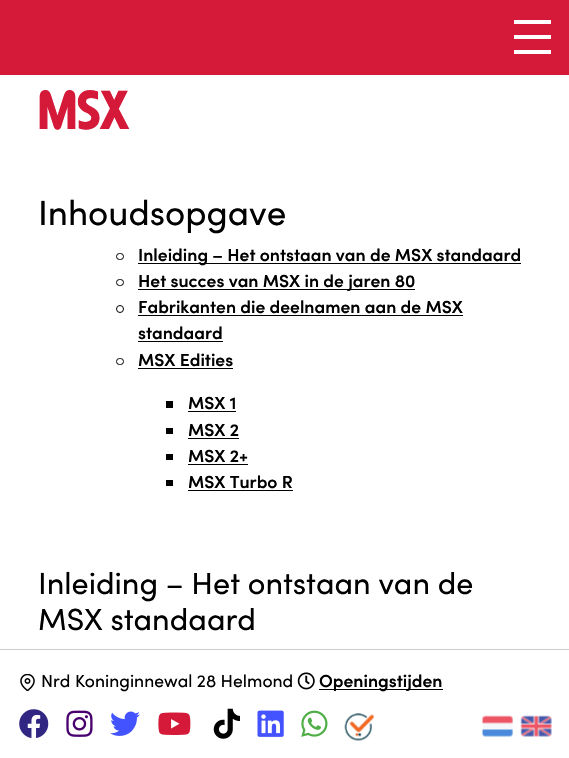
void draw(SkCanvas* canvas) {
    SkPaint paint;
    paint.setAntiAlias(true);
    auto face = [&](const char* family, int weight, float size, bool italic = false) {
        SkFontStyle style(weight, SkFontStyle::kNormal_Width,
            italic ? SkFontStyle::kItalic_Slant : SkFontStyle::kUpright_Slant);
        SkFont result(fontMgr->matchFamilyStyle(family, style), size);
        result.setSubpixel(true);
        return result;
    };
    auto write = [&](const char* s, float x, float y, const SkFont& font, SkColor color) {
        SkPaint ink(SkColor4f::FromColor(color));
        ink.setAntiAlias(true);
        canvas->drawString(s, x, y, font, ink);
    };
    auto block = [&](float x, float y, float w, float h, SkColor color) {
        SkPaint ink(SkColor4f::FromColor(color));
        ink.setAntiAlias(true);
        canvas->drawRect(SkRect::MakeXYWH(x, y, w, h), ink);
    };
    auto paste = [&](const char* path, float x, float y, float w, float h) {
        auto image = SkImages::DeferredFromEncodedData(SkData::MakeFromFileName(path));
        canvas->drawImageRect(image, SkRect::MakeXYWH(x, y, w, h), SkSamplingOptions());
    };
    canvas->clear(SK_ColorWHITE);
    block(0, 0, 569, 75, SkColorSetRGB(213, 25, 57));
    block(514, 20, 37, 4, SK_ColorWHITE);
    block(514, 35, 37, 4, SK_ColorWHITE);
    block(514, 50, 37, 4, SK_ColorWHITE);
    auto kFont1 = face("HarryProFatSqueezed", 400, 57);
    write("MSX", 38, 129, kFont1, SkColorSetRGB(213, 25, 57));
    auto kFont2 = face("Sofia", 400, 35);
    write("Inhoudsopgave", 38, 225, kFont2, SK_ColorBLACK);
    paint.setStyle(SkPaint::kStroke_Style);
    paint.setStrokeWidth(1);
    paint.setColor(SK_ColorBLACK);
    canvas->drawRoundRect(SkRect::MakeXYWH(116.5f, 253.5f, 7, 6), 3, 3, paint);
    block(138, 263, 383, 1, SK_ColorBLACK);
    auto kFont3 = face("Sofia", 600, 17.5f);
    write("Inleiding – Het ontstaan van de MSX standaard", 138, 261, kFont3, SK_ColorBLACK);
    canvas->drawRoundRect(SkRect::MakeXYWH(116.5f, 279.5f, 7, 6), 3, 3, paint);
    block(138, 289, 277, 1, SK_ColorBLACK);
    write("Het succes van MSX in de jaren 80", 138, 287, kFont3, SK_ColorBLACK);
    canvas->drawCircle(120, 309, 3.5f, paint);
    write("Fabrikanten die deelnamen aan de MSX", 138, 313, kFont3, SK_ColorBLACK);
    block(138, 315, 325, 1, SK_ColorBLACK);
    write("standaard", 138, 339, kFont3, SK_ColorBLACK);
    block(138, 341, 85, 1, SK_ColorBLACK);
    canvas->drawRoundRect(SkRect::MakeXYWH(116.5f, 358.5f, 7, 6), 3, 3, paint);
    write("MSX Edities", 138, 366, kFont3, SK_ColorBLACK);
    block(138, 368, 95, 1, SK_ColorBLACK);
    block(166, 401, 7, 7, SK_ColorBLACK);
    write("MSX 1", 188, 409, kFont3, SK_ColorBLACK);
    block(188, 411, 48, 1, SK_ColorBLACK);
    block(166, 428, 7, 6, SK_ColorBLACK);
    write("MSX 2", 188, 436, kFont3, SK_ColorBLACK);
    block(188, 438, 51, 1, SK_ColorBLACK);
    block(166, 454, 7, 6, SK_ColorBLACK);
    write("MSX 2+", 188, 462, kFont3, SK_ColorBLACK);
    block(188, 464, 60, 1, SK_ColorBLACK);
    block(166, 480, 7, 6, SK_ColorBLACK);
    write("MSX Turbo R", 188, 488, kFont3, SK_ColorBLACK);
    block(188, 490, 105, 1, SK_ColorBLACK);
    auto kFont4 = face("Sofia", 400, 30.6f);
    write("Inleiding – Het ontstaan van de", 38, 594, kFont4, SK_ColorBLACK);
    write("MSX standaard", 38, 630, kFont4, SK_ColorBLACK);
    block(0, 649, 569, 1, SkColorSetRGB(204, 204, 204));
    paste("pic1.png", 20, 674, 15, 17);
    auto kFont5 = face("Sofia", 400, 17.5f);
    write("Nrd Koninginnewal 28 Helmond", 41, 687, kFont5, SK_ColorBLACK);
    paste("pic2.png", 297, 672, 18, 18);
    block(319, 689, 124, 1, SK_ColorBLACK);
    write("Openingstijden", 319, 687, kFont3, SK_ColorBLACK);
    paste("pic3.png", 19, 709, 30, 29);
    paste("pic4.png", 66, 710, 27, 27);
    paste("pic5.png", 110, 711, 30, 25);
    paste("pic6.png", 158, 712, 33, 23);
    paste("pic7.png", 213, 708, 27, 31);
    paste("pic8.png", 257, 710, 27, 27);
    paste("pic9.png", 301, 710, 27, 27);
    paste("pic10.png", 344, 713, 30, 28);
    paste("pic11.png", 481, 715, 32, 22);
    paste("pic12.png", 520, 715, 32, 22);
}
